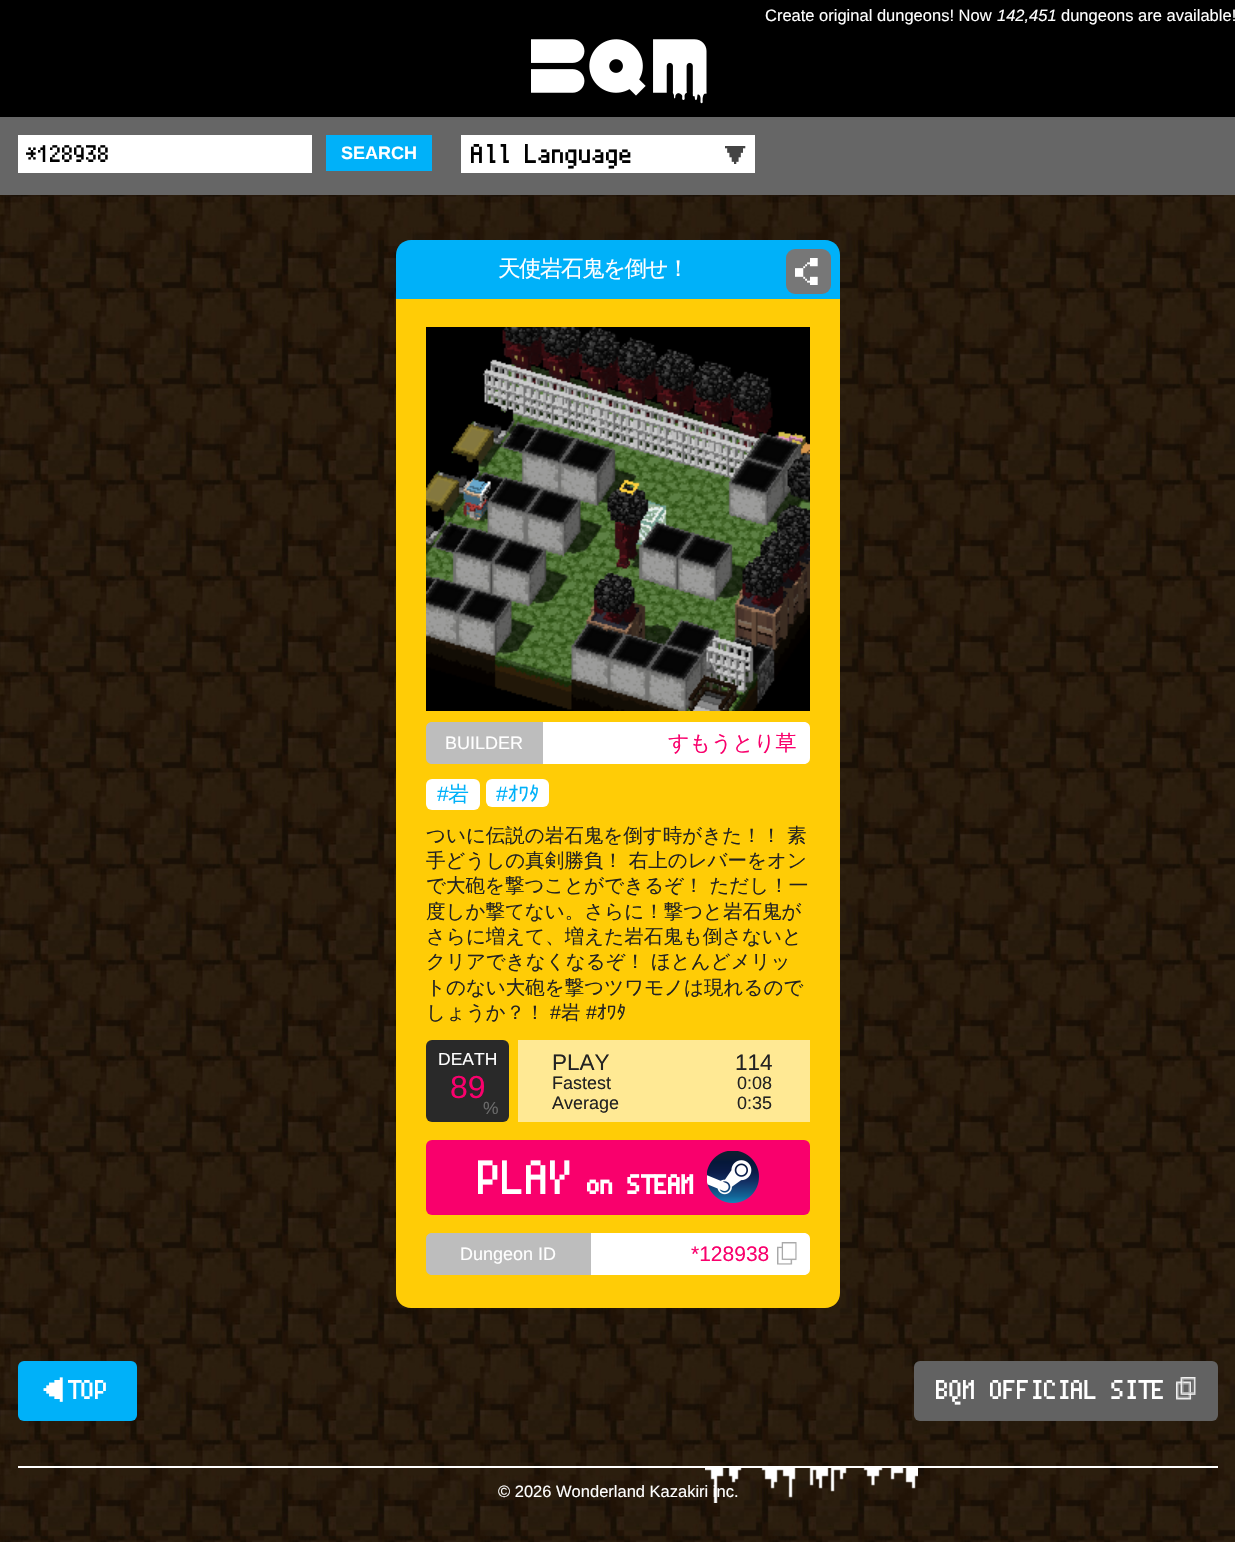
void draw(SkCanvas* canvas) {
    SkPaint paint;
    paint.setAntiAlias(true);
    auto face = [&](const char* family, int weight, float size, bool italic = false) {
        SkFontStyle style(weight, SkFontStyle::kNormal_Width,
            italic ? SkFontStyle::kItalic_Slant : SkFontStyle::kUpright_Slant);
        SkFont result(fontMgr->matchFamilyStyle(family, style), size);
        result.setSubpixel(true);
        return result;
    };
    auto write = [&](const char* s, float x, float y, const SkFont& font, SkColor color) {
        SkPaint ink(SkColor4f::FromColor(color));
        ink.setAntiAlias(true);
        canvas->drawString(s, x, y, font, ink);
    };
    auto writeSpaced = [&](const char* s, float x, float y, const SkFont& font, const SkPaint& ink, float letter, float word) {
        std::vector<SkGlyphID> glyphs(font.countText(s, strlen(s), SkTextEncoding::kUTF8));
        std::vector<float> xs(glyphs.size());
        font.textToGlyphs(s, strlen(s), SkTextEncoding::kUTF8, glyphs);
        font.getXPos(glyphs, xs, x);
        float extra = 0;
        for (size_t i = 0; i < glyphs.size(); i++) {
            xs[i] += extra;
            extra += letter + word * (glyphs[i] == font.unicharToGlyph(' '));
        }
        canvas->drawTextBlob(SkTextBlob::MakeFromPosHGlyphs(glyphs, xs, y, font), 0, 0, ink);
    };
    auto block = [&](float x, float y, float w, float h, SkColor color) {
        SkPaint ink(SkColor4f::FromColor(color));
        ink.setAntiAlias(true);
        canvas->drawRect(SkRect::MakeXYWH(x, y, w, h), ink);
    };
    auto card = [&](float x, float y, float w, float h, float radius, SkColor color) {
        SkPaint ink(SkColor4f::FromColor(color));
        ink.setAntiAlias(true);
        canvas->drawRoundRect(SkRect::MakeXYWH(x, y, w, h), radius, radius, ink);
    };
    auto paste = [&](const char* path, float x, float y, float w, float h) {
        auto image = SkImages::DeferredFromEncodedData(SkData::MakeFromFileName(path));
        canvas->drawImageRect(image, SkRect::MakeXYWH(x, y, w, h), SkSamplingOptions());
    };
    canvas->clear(SK_ColorWHITE);
    paste("pic1.png", 0, 195, 1235, 1347);
    block(0, 0, 1235, 117, SK_ColorBLACK);
    auto kFont1 = face("Liberation Sans", 400, 16.5f);
    write("Create original dungeons! Now", 765, 21, kFont1, SK_ColorWHITE);
    auto kFont2 = face("Liberation Sans", 400, 16.5f, true);
    write("142,451", 997, 21, kFont2, SK_ColorWHITE);
    write("dungeons are available!", 1061, 21, kFont1, SK_ColorWHITE);
    paste("pic2.png", 531, 39, 176, 65);
    block(0, 117, 1235, 78, SkColorSetRGB(102, 102, 102));
    block(18, 135, 294, 38, SK_ColorWHITE);
    canvas->save();
    canvas->clipRect(SkRect::MakeXYWH(26, 141, 279, 26));
    auto kFont3 = face("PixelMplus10", 400, 24);
    write("*128938", 26, 162, kFont3, SK_ColorBLACK);
    canvas->restore();
    block(326, 135, 106, 36, SkColorSetRGB(0, 177, 249));
    auto kFont4 = face("Liberation Sans", 700, 18);
    write("SEARCH", 341, 159, kFont4, SK_ColorWHITE);
    block(461, 135, 294, 38, SK_ColorWHITE);
    canvas->save();
    canvas->clipRect(SkRect::MakeXYWH(471, 140, 273, 30));
    auto kFont5 = face("PixelMplus10", 400, 27);
    write("All Language", 471, 163, kFont5, SK_ColorBLACK);
    canvas->restore();
    auto kFont6 = face("PixelMplus10", 400, 22.5f);
    write("▼", 725, 164, kFont6, SkColorSetRGB(68, 68, 68));
    paint.setColor(SkColorSetRGB(0, 177, 249));
    canvas->drawPath(SkPathBuilder().moveTo(411, 240).lineTo(825, 240).cubicTo(833.5f, 240, 840, 246.5f, 840, 255).lineTo(840, 299).lineTo(396, 299).lineTo(396, 255).cubicTo(396, 246.5f, 402.5f, 240, 411, 240).close().detach(), paint);
    auto kFont7 = face("WenQuanYi Zen Hei", 500, 22.5f);
    paint.setColor(SK_ColorWHITE);
    writeSpaced("天使岩石鬼を倒せ！", 498, 276, kFont7, paint, -1.5f, 0);
    card(786, 249, 45, 45, 9, SkColorSetRGB(119, 119, 119));
    paste("pic3.png", 795, 258, 23, 27);
    paint.setColor(SkColorSetRGB(255, 204, 6));
    canvas->drawPath(SkPathBuilder().moveTo(396, 299).lineTo(840, 299).lineTo(840, 1293).cubicTo(840, 1301.5f, 833.5f, 1308, 825, 1308).lineTo(411, 1308).cubicTo(402.5f, 1308, 396, 1301.5f, 396, 1293).close().detach(), paint);
    paste("pic4.png", 426, 327, 384, 384);
    paint.setColor(SkColorSetRGB(189, 189, 189));
    canvas->drawPath(SkPathBuilder().moveTo(432, 722).lineTo(543, 722).lineTo(543, 764).lineTo(432, 764).cubicTo(428.5f, 764, 426, 761.5f, 426, 758).lineTo(426, 728).cubicTo(426, 724.5f, 428.5f, 722, 432, 722).close().detach(), paint);
    auto kFont8 = face("Liberation Sans", 400, 18);
    write("BUILDER", 445, 749, kFont8, SK_ColorWHITE);
    paint.setColor(SK_ColorWHITE);
    canvas->drawPath(SkPathBuilder().moveTo(543, 722).lineTo(804, 722).cubicTo(807.5f, 722, 810, 724.5f, 810, 728).lineTo(810, 758).cubicTo(810, 761.5f, 807.5f, 764, 804, 764).lineTo(543, 764).close().detach(), paint);
    auto kFont9 = face("WenQuanYi Zen Hei", 500, 21);
    write("すもうとり草", 668, 750, kFont9, SkColorSetRGB(249, 0, 108));
    card(426, 779, 54, 31, 6, SK_ColorWHITE);
    auto kFont10 = face("Liberation Sans", 400, 21);
    write("#", 437, 801, kFont10, SkColorSetRGB(0, 177, 249));
    write("岩", 448, 801, kFont9, SkColorSetRGB(0, 177, 249));
    card(486, 779, 63, 28, 6, SK_ColorWHITE);
    write("#", 496, 801, kFont10, SkColorSetRGB(0, 177, 249));
    auto kFont11 = face("IPAGothic", 400, 21);
    write("ｵﾜﾀ", 508, 801, kFont11, SkColorSetRGB(0, 177, 249));
    auto kFont12 = face("WenQuanYi Zen Hei", 500, 19.5f);
    write("ついに伝説の岩石鬼を倒す時がきた！！ 素", 426, 842, kFont12, SkColorSetRGB(34, 34, 34));
    write("手どうしの真剣勝負！ 右上のレバーをオン", 426, 867, kFont12, SkColorSetRGB(34, 34, 34));
    write("で大砲を撃つことができるぞ！ ただし！一", 426, 892, kFont12, SkColorSetRGB(34, 34, 34));
    write("度しか撃てない。さらに！撃つと岩石鬼が", 426, 918, kFont12, SkColorSetRGB(34, 34, 34));
    write("さらに増えて、増えた岩石鬼も倒さないと", 426, 943, kFont12, SkColorSetRGB(34, 34, 34));
    write("クリアできなくなるぞ！ ほとんどメリッ", 426, 968, kFont12, SkColorSetRGB(34, 34, 34));
    write("トのない大砲を撃つツワモノは現れるので", 426, 994, kFont12, SkColorSetRGB(34, 34, 34));
    write("しょうか？！", 426, 1019, kFont12, SkColorSetRGB(34, 34, 34));
    auto kFont13 = face("Liberation Sans", 400, 19.5f);
    write("#", 550, 1019, kFont13, SkColorSetRGB(34, 34, 34));
    write("岩", 561, 1019, kFont12, SkColorSetRGB(34, 34, 34));
    write("#", 586, 1019, kFont13, SkColorSetRGB(34, 34, 34));
    auto kFont14 = face("IPAGothic", 400, 19.5f);
    write("ｵﾜﾀ", 597, 1019, kFont14, SkColorSetRGB(34, 34, 34));
    card(426, 1040, 83, 82, 6, SkColorSetRGB(41, 41, 41));
    auto kFont15 = face("Liberation Sans", 400, 17.5f);
    write("DEATH", 438, 1065, kFont15, SK_ColorWHITE);
    auto kFont16 = face("Liberation Sans", 400, 32);
    write("89", 450, 1098, kFont16, SkColorSetRGB(249, 0, 108));
    write("%", 483, 1114, kFont15, SkColorSetRGB(105, 105, 105));
    block(518, 1040, 292, 82, SkColorSetRGB(255, 233, 148));
    auto kFont17 = face("Liberation Sans", 400, 22.5f);
    write("PLAY", 552, 1070, kFont17, SkColorSetRGB(34, 34, 34));
    write("114", 735, 1070, kFont17, SkColorSetRGB(34, 34, 34));
    write("Fastest", 552, 1089, kFont8, SkColorSetRGB(34, 34, 34));
    write("0:08", 737, 1089, kFont8, SkColorSetRGB(34, 34, 34));
    write("Average", 552, 1109, kFont8, SkColorSetRGB(34, 34, 34));
    write("0:35", 737, 1109, kFont8, SkColorSetRGB(34, 34, 34));
    card(426, 1140, 384, 75, 6, SkColorSetRGB(249, 0, 108));
    auto kFont18 = face("PixelMplus10", 400, 48);
    write("PLAY", 478, 1194, kFont18, SK_ColorWHITE);
    auto kFont19 = face("PixelMplus10", 700, 27);
    write("on STEAM", 587, 1194, kFont19, SK_ColorWHITE);
    paste("pic5.png", 707, 1151, 52, 52);
    paint.setColor(SkColorSetRGB(189, 189, 189));
    canvas->drawPath(SkPathBuilder().moveTo(432, 1233).lineTo(591, 1233).lineTo(591, 1275).lineTo(432, 1275).cubicTo(428.5f, 1275, 426, 1272.5f, 426, 1269).lineTo(426, 1239).cubicTo(426, 1235.5f, 428.5f, 1233, 432, 1233).close().detach(), paint);
    write("Dungeon ID", 460, 1260, kFont8, SK_ColorWHITE);
    paint.setColor(SK_ColorWHITE);
    canvas->drawPath(SkPathBuilder().moveTo(591, 1233).lineTo(804, 1233).cubicTo(807.5f, 1233, 810, 1235.5f, 810, 1239).lineTo(810, 1269).cubicTo(810, 1272.5f, 807.5f, 1275, 804, 1275).lineTo(591, 1275).close().detach(), paint);
    write("*128938", 691, 1261, kFont10, SkColorSetRGB(249, 0, 108));
    paste("pic6.png", 777, 1242, 20, 23);
    card(18, 1361, 119, 60, 6, SkColorSetRGB(0, 177, 249));
    write("◀ TOP", 41, 1399, kFont5, SK_ColorWHITE);
    card(914, 1361, 304, 60, 6, SkColorSetRGB(98, 98, 98));
    write("BQM OFFICIAL SITE", 936, 1399, kFont5, SK_ColorWHITE);
    paste("pic7.png", 1176, 1377, 20, 23);
    block(18, 1466, 1200, 2, SK_ColorWHITE);
    write("© 2026 Wonderland Kazakiri inc.", 498, 1497, kFont1, SK_ColorWHITE);
    paste("pic8.png", 705, 1468, 213, 35);
}
